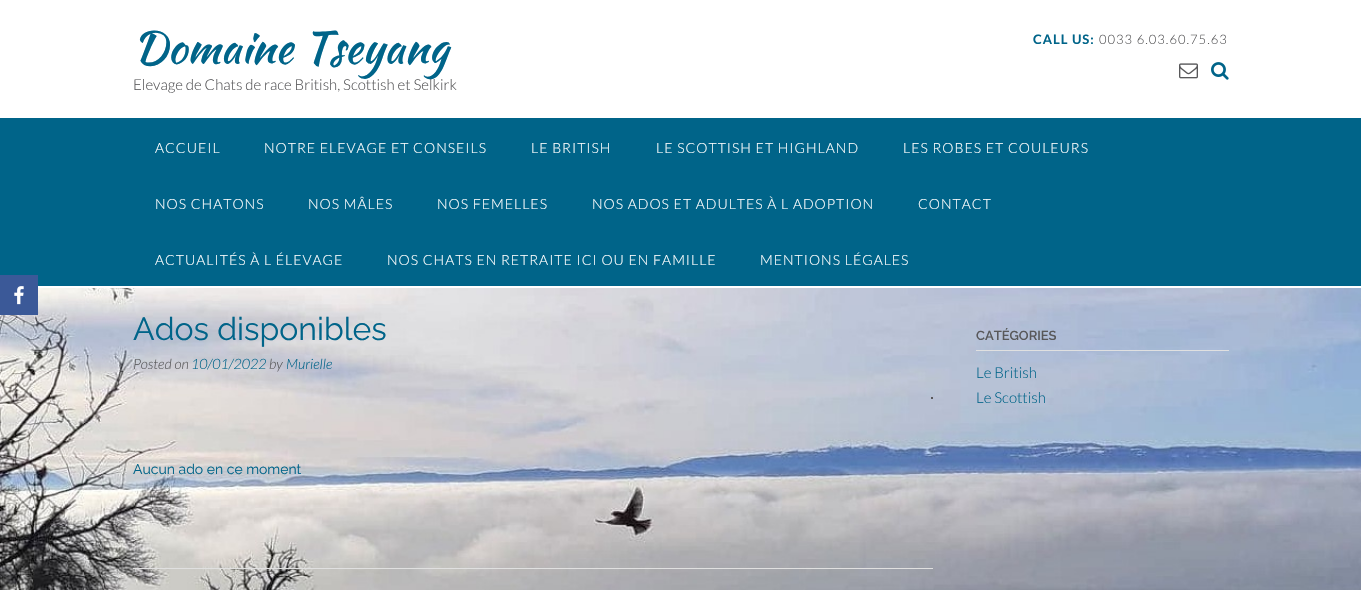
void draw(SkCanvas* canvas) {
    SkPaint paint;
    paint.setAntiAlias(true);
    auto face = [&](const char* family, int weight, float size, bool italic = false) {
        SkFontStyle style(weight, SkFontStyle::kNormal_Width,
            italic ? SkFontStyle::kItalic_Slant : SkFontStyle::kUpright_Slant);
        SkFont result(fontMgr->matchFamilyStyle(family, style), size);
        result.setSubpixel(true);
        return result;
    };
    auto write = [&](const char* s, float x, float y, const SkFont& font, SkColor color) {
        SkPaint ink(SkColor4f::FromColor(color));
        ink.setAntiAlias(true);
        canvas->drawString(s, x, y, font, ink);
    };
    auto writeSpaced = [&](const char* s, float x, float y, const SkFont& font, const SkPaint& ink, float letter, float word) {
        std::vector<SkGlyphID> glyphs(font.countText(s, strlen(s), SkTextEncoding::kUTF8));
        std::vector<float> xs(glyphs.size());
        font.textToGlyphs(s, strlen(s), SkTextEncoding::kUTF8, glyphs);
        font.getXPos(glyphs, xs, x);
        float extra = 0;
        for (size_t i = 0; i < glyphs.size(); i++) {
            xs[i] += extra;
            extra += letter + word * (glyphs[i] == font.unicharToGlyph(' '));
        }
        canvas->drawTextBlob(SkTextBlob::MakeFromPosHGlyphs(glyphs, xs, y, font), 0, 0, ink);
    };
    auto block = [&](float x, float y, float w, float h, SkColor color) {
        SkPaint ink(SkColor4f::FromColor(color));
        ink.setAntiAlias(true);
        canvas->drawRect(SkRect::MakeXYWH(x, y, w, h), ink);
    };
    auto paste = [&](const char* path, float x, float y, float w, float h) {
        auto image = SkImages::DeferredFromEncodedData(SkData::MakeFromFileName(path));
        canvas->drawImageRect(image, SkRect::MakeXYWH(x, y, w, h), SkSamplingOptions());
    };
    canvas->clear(SK_ColorWHITE);
    paste("pic1.png", 0, 288, 1361, 302);
    auto kFont1 = face("Kaushan Script", 400, 44);
    write("Domaine Tseyang", 133, 63, kFont1, SkColorSetRGB(0, 100, 137));
    auto kFont2 = face("Lato", 300, 15);
    write("Elevage de Chats de race British, Scottish et Selkirk", 133, 90, kFont2, SkColorSetRGB(88, 88, 90));
    auto kFont3 = face("Lato", 700, 13);
    paint.setColor(SkColorSetRGB(0, 100, 137));
    writeSpaced("CALL US:", 1033, 44, kFont3, paint, 1, 0);
    auto kFont4 = face("Lato", 300, 13);
    paint.setColor(SkColorSetRGB(88, 88, 90));
    writeSpaced("0033 6.03.60.75.63", 1099, 44, kFont4, paint, 1, 0);
    paste("pic2.png", 1179, 63, 19, 16);
    paste("pic3.png", 1211, 62, 18, 18);
    block(0, 118, 1361, 168, SkColorSetRGB(0, 100, 137));
    auto kFont5 = face("Lato", 300, 14);
    paint.setColor(SK_ColorWHITE);
    writeSpaced("ACCUEIL", 155, 153, kFont5, paint, 1, 0);
    writeSpaced("NOTRE ELEVAGE ET CONSEILS", 264, 153, kFont5, paint, 1, 0);
    writeSpaced("LE BRITISH", 531, 153, kFont5, paint, 1, 0);
    writeSpaced("LE SCOTTISH ET HIGHLAND", 656, 153, kFont5, paint, 1, 0);
    writeSpaced("LES ROBES ET COULEURS", 903, 153, kFont5, paint, 1, 0);
    writeSpaced("NOS CHATONS", 155, 209, kFont5, paint, 1, 0);
    writeSpaced("NOS MÂLES", 308, 209, kFont5, paint, 1, 0);
    writeSpaced("NOS FEMELLES", 437, 209, kFont5, paint, 1, 0);
    writeSpaced("NOS ADOS ET ADULTES À L ADOPTION", 592, 209, kFont5, paint, 1, 0);
    writeSpaced("CONTACT", 918, 209, kFont5, paint, 1, 0);
    writeSpaced("ACTUALITÉS À L ÉLEVAGE", 155, 265, kFont5, paint, 1, 0);
    writeSpaced("NOS CHATS EN RETRAITE ICI OU EN FAMILLE", 387, 265, kFont5, paint, 1, 0);
    writeSpaced("MENTIONS LÉGALES", 760, 265, kFont5, paint, 1, 0);
    block(0, 275, 38, 40, SkColorSetRGB(59, 89, 152));
    paste("pic4.png", 14, 286, 10, 19);
    block(133, 568, 800, 1, SkColorSetRGB(224, 224, 224));
    auto kFont6 = face("Raleway", 400, 32);
    write("Ados disponibles", 133, 340, kFont6, SkColorSetRGB(0, 100, 137));
    auto kFont7 = face("Lato", 300, 14.25f, true);
    write("Posted on", 133, 369, kFont7, SkColorSetRGB(88, 88, 90));
    write("10/01/2022", 191, 369, kFont7, SkColorSetRGB(0, 100, 137));
    write("by", 269, 369, kFont7, SkColorSetRGB(88, 88, 90));
    write("Murielle", 286, 369, kFont7, SkColorSetRGB(0, 100, 137));
    block(931, 397, 2, 2, SkColorSetRGB(88, 88, 90));
    auto kFont8 = face("Raleway", 400, 14);
    write("Aucun ado en ce moment", 133, 474, kFont8, SkColorSetRGB(0, 100, 137));
    block(976, 350, 253, 1, SkColorSetRGB(224, 224, 224));
    auto kFont9 = face("Raleway", 600, 13);
    write("CATÉGORIES", 976, 340, kFont9, SkColorSetRGB(88, 88, 90));
    write("Le British", 976, 378, kFont2, SkColorSetRGB(0, 100, 137));
    write("Le Scottish", 976, 403, kFont2, SkColorSetRGB(0, 100, 137));
}
